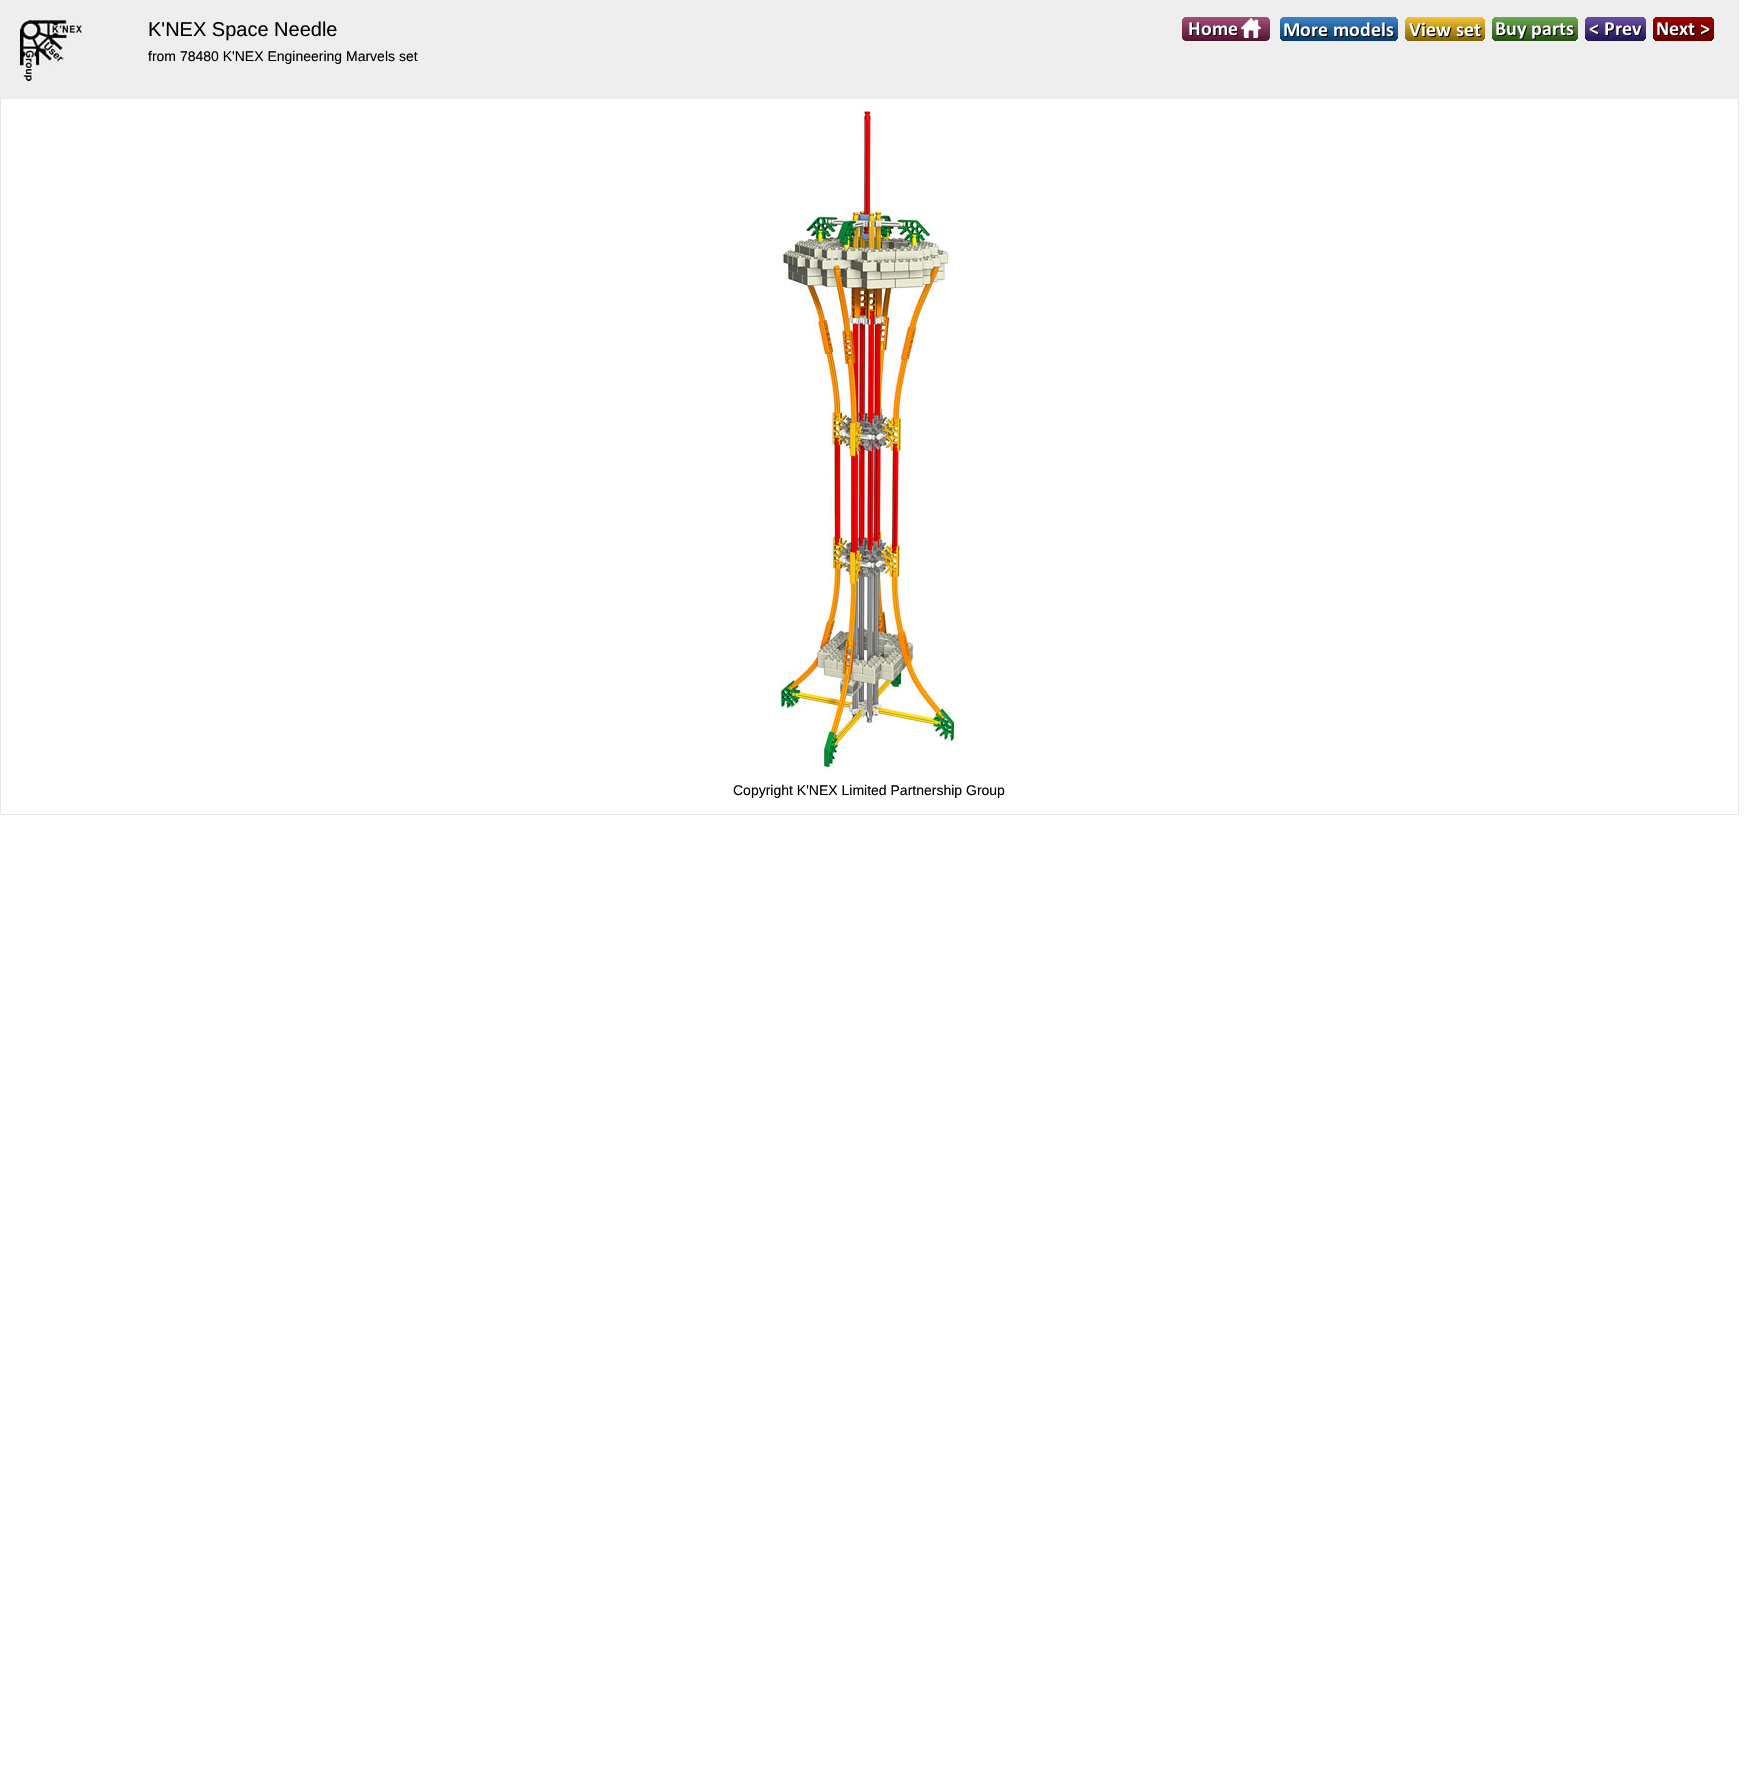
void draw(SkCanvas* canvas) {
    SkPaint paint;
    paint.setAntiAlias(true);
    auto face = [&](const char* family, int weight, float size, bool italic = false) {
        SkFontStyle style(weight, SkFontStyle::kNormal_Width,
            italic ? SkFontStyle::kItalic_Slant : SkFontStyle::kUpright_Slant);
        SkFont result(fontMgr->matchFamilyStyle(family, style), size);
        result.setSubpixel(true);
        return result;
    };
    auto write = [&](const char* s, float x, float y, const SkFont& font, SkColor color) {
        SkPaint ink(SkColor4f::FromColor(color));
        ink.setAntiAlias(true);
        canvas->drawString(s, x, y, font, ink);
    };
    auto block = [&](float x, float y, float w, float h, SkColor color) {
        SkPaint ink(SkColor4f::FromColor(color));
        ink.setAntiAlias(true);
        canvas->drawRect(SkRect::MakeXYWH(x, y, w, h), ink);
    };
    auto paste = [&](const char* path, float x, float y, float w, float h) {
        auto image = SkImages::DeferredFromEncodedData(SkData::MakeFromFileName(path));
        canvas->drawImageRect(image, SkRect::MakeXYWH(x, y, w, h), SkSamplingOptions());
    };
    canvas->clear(SK_ColorWHITE);
    paint.setStyle(SkPaint::kStroke_Style);
    paint.setStrokeWidth(1);
    paint.setColor(SkColorSetRGB(230, 230, 230));
    canvas->drawRect(SkRect::MakeXYWH(0.5f, 0.5f, 1738, 814), paint);
    block(0, 0, 1739, 99, SkColorSetRGB(238, 238, 238));
    paste("pic1.png", 20, 20, 63, 61);
    auto kFont1 = face("Liberation Sans", 400, 20);
    write("K'NEX Space Needle", 148, 36, kFont1, SK_ColorBLACK);
    auto kFont2 = face("Liberation Sans", 400, 14);
    write("from 78480 K'NEX Engineering Marvels set", 148, 61, kFont2, SK_ColorBLACK);
    paste("pic2.png", 1182, 17, 88, 24);
    paste("pic3.png", 1280, 17, 118, 24);
    paste("pic4.png", 1405, 17, 80, 24);
    paste("pic5.png", 1492, 17, 86, 24);
    paste("pic6.png", 1585, 17, 61, 24);
    paste("pic7.png", 1653, 17, 61, 24);
    paste("pic8.png", 774, 106, 184, 664);
    write("Copyright K'NEX Limited Partnership Group", 733, 795, kFont2, SK_ColorBLACK);
}
